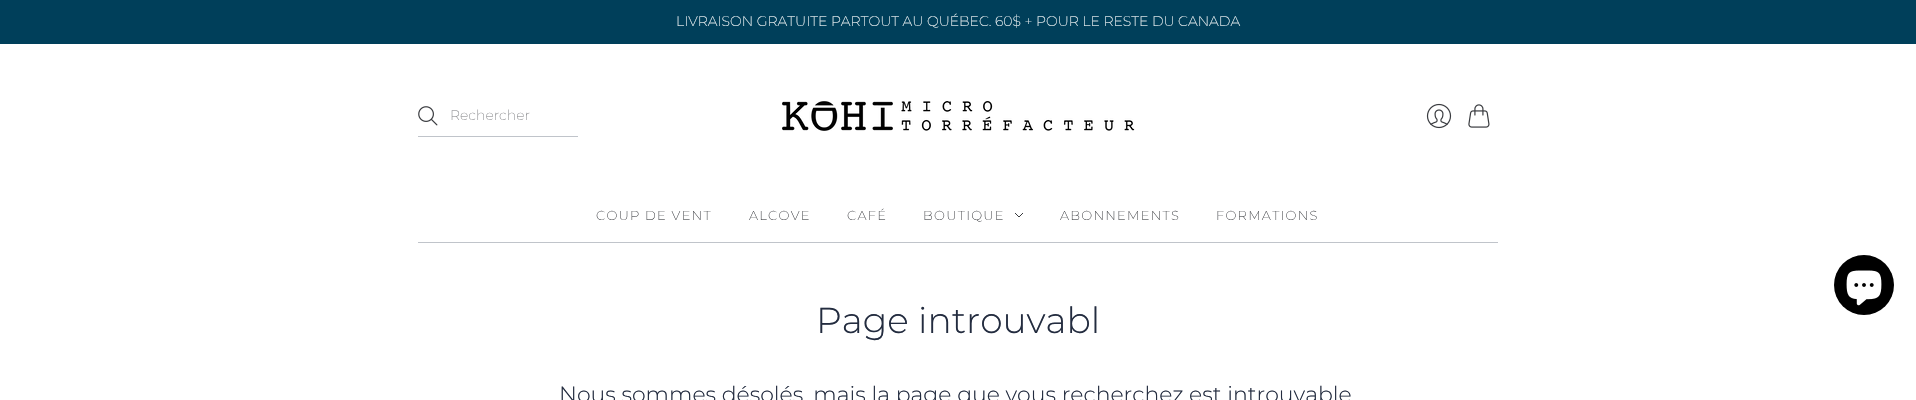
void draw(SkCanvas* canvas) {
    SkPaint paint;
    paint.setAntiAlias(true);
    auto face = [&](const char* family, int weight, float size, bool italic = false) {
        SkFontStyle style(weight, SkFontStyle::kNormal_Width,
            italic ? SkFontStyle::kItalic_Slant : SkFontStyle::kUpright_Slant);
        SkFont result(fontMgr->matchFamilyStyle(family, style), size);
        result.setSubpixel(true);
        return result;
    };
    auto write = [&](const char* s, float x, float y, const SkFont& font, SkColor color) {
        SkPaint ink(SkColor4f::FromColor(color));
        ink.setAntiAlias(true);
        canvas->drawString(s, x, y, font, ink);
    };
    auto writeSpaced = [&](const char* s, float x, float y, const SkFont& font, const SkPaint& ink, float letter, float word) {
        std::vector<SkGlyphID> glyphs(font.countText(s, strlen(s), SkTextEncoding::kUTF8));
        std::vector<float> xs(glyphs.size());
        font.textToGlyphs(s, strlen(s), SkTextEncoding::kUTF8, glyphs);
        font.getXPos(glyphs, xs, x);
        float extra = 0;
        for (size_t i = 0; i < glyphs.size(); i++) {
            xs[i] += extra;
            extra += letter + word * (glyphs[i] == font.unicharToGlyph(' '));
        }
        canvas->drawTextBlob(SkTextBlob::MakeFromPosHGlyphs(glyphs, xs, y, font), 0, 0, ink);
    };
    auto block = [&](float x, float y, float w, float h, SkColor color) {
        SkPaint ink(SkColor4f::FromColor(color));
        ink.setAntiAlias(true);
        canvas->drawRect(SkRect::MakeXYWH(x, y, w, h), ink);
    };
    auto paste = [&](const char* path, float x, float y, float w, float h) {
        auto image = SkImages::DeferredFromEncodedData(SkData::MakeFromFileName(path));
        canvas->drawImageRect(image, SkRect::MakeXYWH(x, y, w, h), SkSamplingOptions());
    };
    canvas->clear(SK_ColorWHITE);
    block(0, 0, 1916, 44, SkColorSetRGB(0, 63, 90));
    auto kFont1 = face("Montserrat", 200, 14);
    write("LIVRAISON GRATUITE PARTOUT AU QUÉBEC. 60$ + POUR LE RESTE DU CANADA", 676, 26, kFont1, SK_ColorWHITE);
    paste("pic1.png", 418, 106, 20, 20);
    write("Rechercher", 450, 120, kFont1, SkColorSetRGB(136, 137, 140));
    block(418, 136, 160, 1, SkColorSetRGB(192, 196, 202));
    paste("pic2.png", 1426, 103, 26, 26);
    paste("pic3.png", 1468, 104, 22, 24);
    block(418, 242, 1080, 1, SkColorSetRGB(192, 196, 202));
    paste("pic4.png", 782, 101, 353, 30);
    auto kFont2 = face("Montserrat", 200, 13);
    paint.setColor(SkColorSetRGB(57, 59, 63));
    writeSpaced("COUP DE VENT", 596, 220, kFont2, paint, 1.25f, 0);
    writeSpaced("ALCOVE", 749, 220, kFont2, paint, 1.25f, 0);
    writeSpaced("CAFÉ", 847, 220, kFont2, paint, 1.25f, 0);
    writeSpaced("BOUTIQUE", 923, 220, kFont2, paint, 1.25f, 0);
    paint.setStyle(SkPaint::kStroke_Style);
    paint.setStrokeWidth(1);
    canvas->drawPath(SkPathBuilder().moveTo(1015, 213).lineTo(1019, 217).lineTo(1023, 213).detach(), paint);
    paint.setStyle(SkPaint::kFill_Style);
    writeSpaced("ABONNEMENTS", 1060, 220, kFont2, paint, 1.25f, 0);
    writeSpaced("FORMATIONS", 1216, 220, kFont2, paint, 1.25f, 0);
    paint.setColor(SK_ColorBLACK);
    canvas->drawCircle(1864, 285, 30, paint);
    paste("pic5.png", 1846, 270, 36, 36);
    auto kFont3 = face("Montserrat", 300, 36);
    write("Page introuvabl", 816, 333, kFont3, SkColorSetRGB(35, 44, 63));
    auto kFont4 = face("Montserrat", 300, 22);
    write("Nous sommes désolés, mais la page que vous recherchez est introuvable", 559, 402, kFont4, SkColorSetRGB(35, 44, 63));
}
